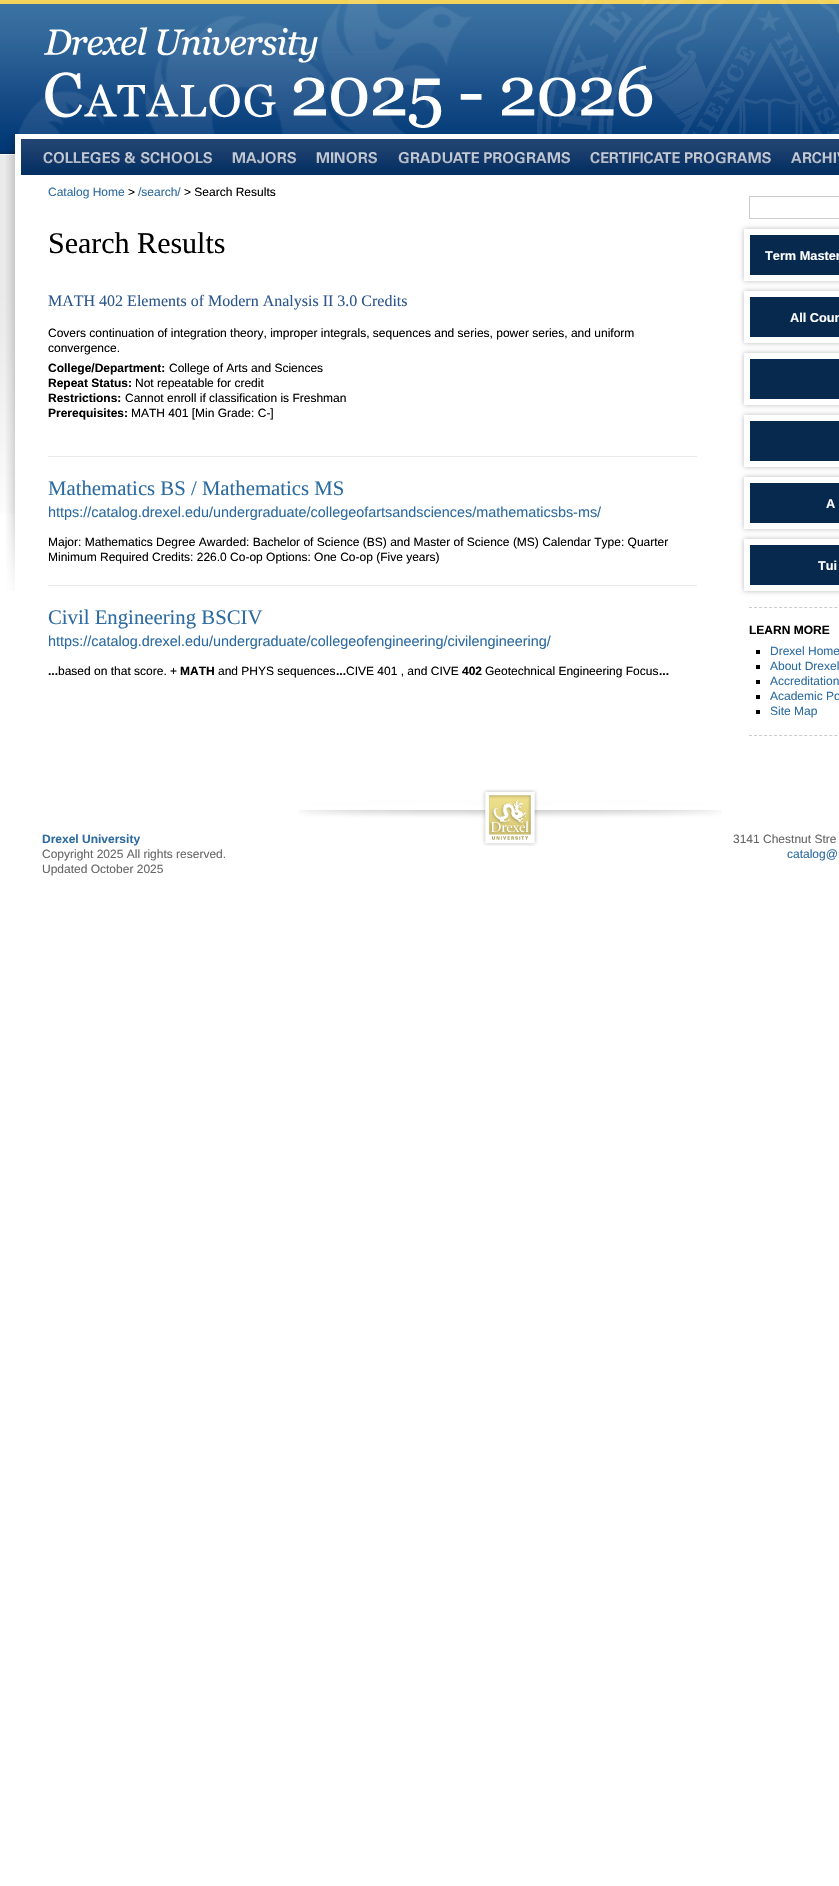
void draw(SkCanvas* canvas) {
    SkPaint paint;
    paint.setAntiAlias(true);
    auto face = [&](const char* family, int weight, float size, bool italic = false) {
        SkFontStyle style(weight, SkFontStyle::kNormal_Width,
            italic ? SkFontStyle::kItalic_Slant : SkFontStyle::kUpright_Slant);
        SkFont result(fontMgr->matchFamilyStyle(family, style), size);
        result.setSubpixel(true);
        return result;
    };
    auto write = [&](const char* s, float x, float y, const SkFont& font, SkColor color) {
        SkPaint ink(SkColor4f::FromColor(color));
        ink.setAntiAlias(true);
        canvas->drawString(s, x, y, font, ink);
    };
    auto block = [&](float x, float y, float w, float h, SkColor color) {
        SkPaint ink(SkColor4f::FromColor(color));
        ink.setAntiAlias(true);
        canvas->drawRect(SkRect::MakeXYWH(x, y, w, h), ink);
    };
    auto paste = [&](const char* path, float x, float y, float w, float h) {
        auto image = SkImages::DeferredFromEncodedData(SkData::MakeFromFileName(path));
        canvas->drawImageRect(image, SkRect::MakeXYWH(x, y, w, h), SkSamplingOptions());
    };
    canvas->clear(SK_ColorWHITE);
    paste("pic1.png", 0, 0, 839, 514);
    paste("pic2.png", 18, 0, 821, 134);
    paste("pic3.png", 6, 134, 833, 457);
    paste("pic4.png", 21, 139, 818, 36);
    paste("pic5.png", 43, 152, 169, 12);
    paste("pic6.png", 232, 152, 64, 12);
    paste("pic7.png", 316, 152, 61, 12);
    paste("pic8.png", 398, 152, 172, 12);
    paste("pic9.png", 590, 152, 181, 12);
    paste("pic10.png", 790, 152, 49, 13);
    auto kFont1 = face("Liberation Sans", 400, 12);
    write("Catalog Home", 48, 196, kFont1, SkColorSetRGB(44, 107, 162));
    write(">", 128, 196, kFont1, SK_ColorBLACK);
    write("/search/", 138, 196, kFont1, SkColorSetRGB(44, 107, 162));
    write("> Search Results", 184, 196, kFont1, SK_ColorBLACK);
    auto kFont2 = face("Liberation Serif", 400, 30);
    write("Search Results", 48, 253, kFont2, SK_ColorBLACK);
    auto kFont3 = face("Liberation Serif", 400, 16);
    write("MATH 402 Elements of Modern Analysis II 3.0 Credits", 48, 306, kFont3, SkColorSetRGB(43, 86, 141));
    write("Covers continuation of integration theory, improper integrals, sequences and series, power series, and uniform", 48, 337, kFont1, SK_ColorBLACK);
    write("convergence.", 48, 352, kFont1, SK_ColorBLACK);
    auto kFont4 = face("Liberation Sans", 700, 12);
    write("College/Department:", 48, 372, kFont4, SK_ColorBLACK);
    write("College of Arts and Sciences", 169, 372, kFont1, SK_ColorBLACK);
    write("Repeat Status:", 48, 387, kFont4, SK_ColorBLACK);
    write("Not repeatable for credit", 135, 387, kFont1, SK_ColorBLACK);
    write("Restrictions:", 48, 402, kFont4, SK_ColorBLACK);
    write("Cannot enroll if classification is Freshman", 125, 402, kFont1, SK_ColorBLACK);
    write("Prerequisites:", 48, 417, kFont4, SK_ColorBLACK);
    write("MATH 401 [Min Grade: C-]", 131, 417, kFont1, SK_ColorBLACK);
    block(48, 456, 649, 1, SkColorSetRGB(234, 234, 234));
    auto kFont5 = face("Liberation Serif", 400, 20.75f);
    write("Mathematics BS / Mathematics MS", 48, 495, kFont5, SkColorSetRGB(44, 107, 162));
    auto kFont6 = face("Liberation Sans", 400, 14.4f);
    write("https://catalog.drexel.edu/undergraduate/collegeofartsandsciences/mathematicsbs-ms/", 48, 517, kFont6, SkColorSetRGB(44, 107, 162));
    write("Major: Mathematics Degree Awarded: Bachelor of Science (BS) and Master of Science (MS) Calendar Type: Quarter", 48, 546, kFont1, SK_ColorBLACK);
    write("Minimum Required Credits: 226.0 Co-op Options: One Co-op (Five years)", 48, 561, kFont1, SK_ColorBLACK);
    block(48, 585, 649, 1, SkColorSetRGB(234, 234, 234));
    write("Civil Engineering BSCIV", 48, 624, kFont5, SkColorSetRGB(44, 107, 162));
    write("https://catalog.drexel.edu/undergraduate/collegeofengineering/civilengineering/", 48, 646, kFont6, SkColorSetRGB(44, 107, 162));
    write("...", 48, 675, kFont4, SK_ColorBLACK);
    write("based on that score. +", 58, 675, kFont1, SK_ColorBLACK);
    write("MATH", 180, 675, kFont4, SK_ColorBLACK);
    write("and PHYS sequences", 218, 675, kFont1, SK_ColorBLACK);
    write("...", 336, 675, kFont4, SK_ColorBLACK);
    write("CIVE 401 , and CIVE", 346, 675, kFont1, SK_ColorBLACK);
    write("402", 462, 675, kFont4, SK_ColorBLACK);
    write("Geotechnical Engineering Focus", 485, 675, kFont1, SK_ColorBLACK);
    write("...", 659, 675, kFont4, SK_ColorBLACK);
    paint.setStyle(SkPaint::kStroke_Style);
    paint.setStrokeWidth(1);
    paint.setColor(SkColorSetRGB(204, 204, 204));
    canvas->drawRect(SkRect::MakeXYWH(749.5f, 196.5f, 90, 22), paint);
    paint.setStyle(SkPaint::kFill_Style);
    paint.setColor(SkColorSetRGB(187, 187, 187));
    paint.setMaskFilter(SkMaskFilter::MakeBlur(kNormal_SkBlurStyle, 2.5f));
    canvas->drawRect(SkRect::MakeXYWH(744, 229, 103, 52), paint);
    paint.setMaskFilter(nullptr);
    paint.setColor(SkColorSetRGB(7, 41, 77));
    canvas->drawRect(SkRect::MakeXYWH(747, 232, 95, 46), paint);
    paint.setStyle(SkPaint::kStroke_Style);
    paint.setStrokeWidth(6);
    paint.setColor(SK_ColorWHITE);
    canvas->drawRect(SkRect::MakeXYWH(747, 232, 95, 46), paint);
    auto kFont7 = face("Liberation Sans", 700, 12.75f);
    write("Term Master", 765, 260, kFont7, SK_ColorWHITE);
    paint.setStyle(SkPaint::kFill_Style);
    paint.setColor(SkColorSetRGB(187, 187, 187));
    paint.setMaskFilter(SkMaskFilter::MakeBlur(kNormal_SkBlurStyle, 2.5f));
    canvas->drawRect(SkRect::MakeXYWH(744, 291, 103, 52), paint);
    paint.setMaskFilter(nullptr);
    paint.setColor(SkColorSetRGB(7, 41, 77));
    canvas->drawRect(SkRect::MakeXYWH(747, 294, 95, 46), paint);
    paint.setStyle(SkPaint::kStroke_Style);
    paint.setColor(SK_ColorWHITE);
    canvas->drawRect(SkRect::MakeXYWH(747, 294, 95, 46), paint);
    write("All Cour", 790, 322, kFont7, SK_ColorWHITE);
    paint.setStyle(SkPaint::kFill_Style);
    paint.setColor(SkColorSetRGB(187, 187, 187));
    paint.setMaskFilter(SkMaskFilter::MakeBlur(kNormal_SkBlurStyle, 2.5f));
    canvas->drawRect(SkRect::MakeXYWH(744, 353, 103, 52), paint);
    paint.setMaskFilter(nullptr);
    paint.setColor(SkColorSetRGB(7, 41, 77));
    canvas->drawRect(SkRect::MakeXYWH(747, 356, 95, 46), paint);
    paint.setStyle(SkPaint::kStroke_Style);
    paint.setColor(SK_ColorWHITE);
    canvas->drawRect(SkRect::MakeXYWH(747, 356, 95, 46), paint);
    paint.setStyle(SkPaint::kFill_Style);
    paint.setColor(SkColorSetRGB(187, 187, 187));
    paint.setMaskFilter(SkMaskFilter::MakeBlur(kNormal_SkBlurStyle, 2.5f));
    canvas->drawRect(SkRect::MakeXYWH(744, 415, 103, 52), paint);
    paint.setMaskFilter(nullptr);
    paint.setColor(SkColorSetRGB(7, 41, 77));
    canvas->drawRect(SkRect::MakeXYWH(747, 418, 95, 46), paint);
    paint.setStyle(SkPaint::kStroke_Style);
    paint.setColor(SK_ColorWHITE);
    canvas->drawRect(SkRect::MakeXYWH(747, 418, 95, 46), paint);
    paint.setStyle(SkPaint::kFill_Style);
    paint.setColor(SkColorSetRGB(187, 187, 187));
    paint.setMaskFilter(SkMaskFilter::MakeBlur(kNormal_SkBlurStyle, 2.5f));
    canvas->drawRect(SkRect::MakeXYWH(744, 477, 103, 52), paint);
    paint.setMaskFilter(nullptr);
    paint.setColor(SkColorSetRGB(7, 41, 77));
    canvas->drawRect(SkRect::MakeXYWH(747, 480, 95, 46), paint);
    paint.setStyle(SkPaint::kStroke_Style);
    paint.setColor(SK_ColorWHITE);
    canvas->drawRect(SkRect::MakeXYWH(747, 480, 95, 46), paint);
    write("A", 826, 508, kFont7, SK_ColorWHITE);
    paint.setStyle(SkPaint::kFill_Style);
    paint.setColor(SkColorSetRGB(187, 187, 187));
    paint.setMaskFilter(SkMaskFilter::MakeBlur(kNormal_SkBlurStyle, 2.5f));
    canvas->drawRect(SkRect::MakeXYWH(744, 539, 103, 52), paint);
    paint.setMaskFilter(nullptr);
    paint.setColor(SkColorSetRGB(7, 41, 77));
    canvas->drawRect(SkRect::MakeXYWH(747, 542, 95, 46), paint);
    paint.setStyle(SkPaint::kStroke_Style);
    paint.setColor(SK_ColorWHITE);
    canvas->drawRect(SkRect::MakeXYWH(747, 542, 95, 46), paint);
    write("Tui", 818, 570, kFont7, SK_ColorWHITE);
    paint.setStrokeWidth(1);
    paint.setColor(SkColorSetRGB(204, 204, 204));
    paint.setPathEffect(SkDashPathEffect::Make({{3, 2.02f}}, 0));
    canvas->drawPath(SkPathBuilder().moveTo(749, 607.5f).lineTo(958, 607.5f).detach(), paint);
    paint.setPathEffect(nullptr);
    write("LEARN MORE", 749, 634, kFont4, SK_ColorBLACK);
    block(756, 650, 4, 4, SK_ColorBLACK);
    write("Drexel Home", 770, 655, kFont1, SkColorSetRGB(44, 107, 162));
    block(756, 665, 4, 4, SK_ColorBLACK);
    write("About Drexel", 770, 670, kFont1, SkColorSetRGB(44, 107, 162));
    block(756, 680, 4, 4, SK_ColorBLACK);
    write("Accreditation", 770, 685, kFont1, SkColorSetRGB(44, 107, 162));
    block(756, 695, 4, 4, SK_ColorBLACK);
    write("Academic Po", 770, 700, kFont1, SkColorSetRGB(44, 107, 162));
    block(756, 710, 4, 4, SK_ColorBLACK);
    write("Site Map", 770, 715, kFont1, SkColorSetRGB(44, 107, 162));
    paint.setPathEffect(SkDashPathEffect::Make({{3, 2.02f}}, 0));
    canvas->drawPath(SkPathBuilder().moveTo(749, 735.5f).lineTo(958, 735.5f).detach(), paint);
    paint.setPathEffect(nullptr);
    paste("pic11.png", 298, 789, 424, 57);
    write("Drexel University", 42, 843, kFont4, SkColorSetRGB(44, 107, 162));
    write("Copyright 2025 All rights reserved.", 42, 858, kFont1, SkColorSetRGB(102, 102, 102));
    write("Updated October 2025", 42, 873, kFont1, SkColorSetRGB(102, 102, 102));
    write("3141 Chestnut Stre", 733, 843, kFont1, SkColorSetRGB(102, 102, 102));
    write("catalog@", 787, 858, kFont1, SkColorSetRGB(44, 107, 162));
}
